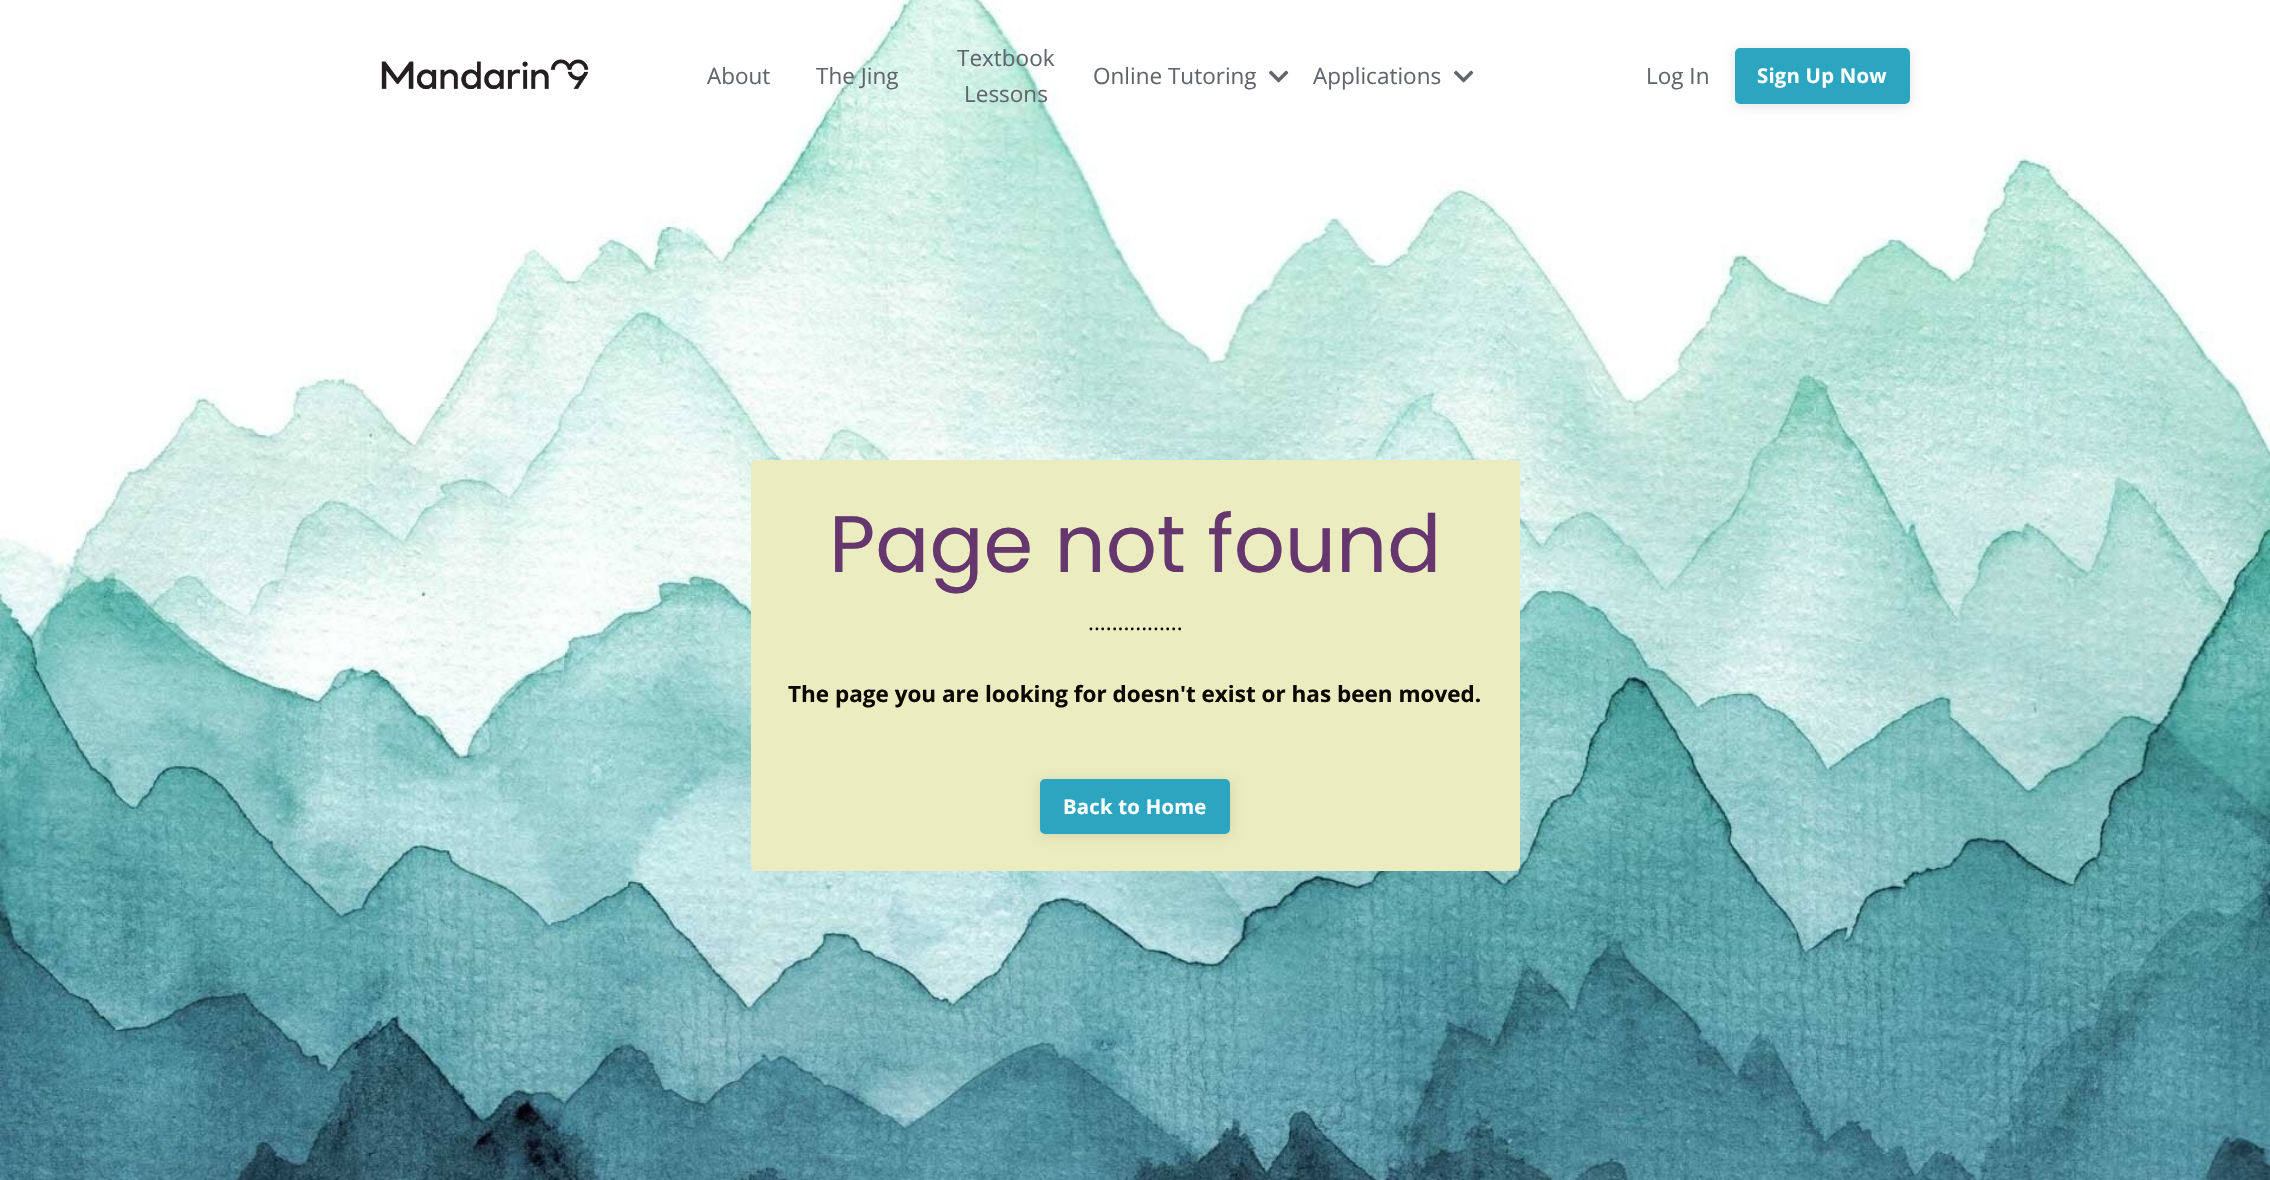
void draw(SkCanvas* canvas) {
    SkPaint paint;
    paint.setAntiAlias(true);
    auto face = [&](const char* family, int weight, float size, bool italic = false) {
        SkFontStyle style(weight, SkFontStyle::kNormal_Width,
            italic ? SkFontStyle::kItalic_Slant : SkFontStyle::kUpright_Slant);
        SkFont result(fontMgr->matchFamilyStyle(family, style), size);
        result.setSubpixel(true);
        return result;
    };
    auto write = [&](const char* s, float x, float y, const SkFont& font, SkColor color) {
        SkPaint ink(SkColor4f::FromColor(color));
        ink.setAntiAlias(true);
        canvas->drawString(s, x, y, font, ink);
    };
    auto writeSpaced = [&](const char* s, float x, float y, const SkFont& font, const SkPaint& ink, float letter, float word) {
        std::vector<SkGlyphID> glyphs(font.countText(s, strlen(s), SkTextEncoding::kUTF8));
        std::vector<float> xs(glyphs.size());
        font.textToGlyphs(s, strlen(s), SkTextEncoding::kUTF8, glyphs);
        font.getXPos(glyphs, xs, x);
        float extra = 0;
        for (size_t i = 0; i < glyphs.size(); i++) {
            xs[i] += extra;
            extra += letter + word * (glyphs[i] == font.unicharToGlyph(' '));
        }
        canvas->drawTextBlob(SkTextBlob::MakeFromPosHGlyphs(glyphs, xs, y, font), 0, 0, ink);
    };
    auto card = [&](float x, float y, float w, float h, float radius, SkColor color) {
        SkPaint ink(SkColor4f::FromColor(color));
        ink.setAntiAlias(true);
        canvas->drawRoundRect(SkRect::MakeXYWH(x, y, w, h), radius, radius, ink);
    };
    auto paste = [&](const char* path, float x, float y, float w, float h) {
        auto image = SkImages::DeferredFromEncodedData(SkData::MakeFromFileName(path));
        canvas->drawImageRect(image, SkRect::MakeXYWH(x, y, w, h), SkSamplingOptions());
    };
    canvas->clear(SK_ColorWHITE);
    paste("pic3.png", 0, 0, 2270, 1180);
    paste("pic1.png", 381, 59, 208, 31);
    auto kFont1 = face("Open Sans", 400, 22.5f);
    write("About", 707, 84, kFont1, SkColorSetRGB(97, 102, 109));
    write("The Jing", 816, 84, kFont1, SkColorSetRGB(97, 102, 109));
    write("Textbook", 957, 66, kFont1, SkColorSetRGB(97, 102, 109));
    write("Lessons", 964, 102, kFont1, SkColorSetRGB(97, 102, 109));
    write("Online Tutoring", 1093, 84, kFont1, SkColorSetRGB(97, 102, 109));
    paste("pic2.png", 1269, 70, 20, 13);
    write("Applications", 1313, 84, kFont1, SkColorSetRGB(97, 102, 109));
    paste("pic2.png", 1454, 70, 20, 13);
    write("Log In", 1646, 84, kFont1, SkColorSetRGB(97, 102, 109));
    paint.setColor(SkColorSetARGB(26, 0, 0, 0));
    paint.setMaskFilter(SkMaskFilter::MakeBlur(kNormal_SkBlurStyle, 6));
    canvas->drawRoundRect(SkRect::MakeXYWH(1735, 50, 175, 56), 5, 5, paint);
    paint.setMaskFilter(nullptr);
    paint.setColor(SkColorSetRGB(44, 166, 192));
    canvas->drawRoundRect(SkRect::MakeXYWH(1736.5f, 49.5f, 172, 53), 3.5f, 3.5f, paint);
    paint.setStyle(SkPaint::kStroke_Style);
    paint.setStrokeWidth(3);
    canvas->drawRoundRect(SkRect::MakeXYWH(1736.5f, 49.5f, 172, 53), 3.5f, 3.5f, paint);
    auto kFont2 = face("Open Sans", 700, 20.25f);
    paint.setStyle(SkPaint::kFill_Style);
    paint.setColor(SK_ColorWHITE);
    writeSpaced("Sign Up Now", 1757, 83, kFont2, paint, 0.25f, 0);
    card(751, 460, 769, 411, 5, SkColorSetRGB(235, 236, 192));
    auto kFont3 = face("Poppins", 400, 80);
    write("Page not found", 829, 572, kFont3, SkColorSetRGB(102, 55, 111));
    write("................", 1088, 630, kFont1, SkColorSetRGB(13, 8, 2));
    auto kFont4 = face("Open Sans", 700, 22.5f);
    write("The page you are looking for doesn't exist or has been moved.", 788, 702, kFont4, SkColorSetRGB(13, 8, 2));
    paint.setColor(SkColorSetARGB(26, 0, 0, 0));
    paint.setMaskFilter(SkMaskFilter::MakeBlur(kNormal_SkBlurStyle, 6));
    canvas->drawRoundRect(SkRect::MakeXYWH(1040, 781, 190, 55), 5, 5, paint);
    paint.setMaskFilter(nullptr);
    paint.setColor(SkColorSetRGB(44, 166, 192));
    canvas->drawRoundRect(SkRect::MakeXYWH(1041.5f, 780.5f, 187, 52), 3.5f, 3.5f, paint);
    paint.setStyle(SkPaint::kStroke_Style);
    canvas->drawRoundRect(SkRect::MakeXYWH(1041.5f, 780.5f, 187, 52), 3.5f, 3.5f, paint);
    paint.setStyle(SkPaint::kFill_Style);
    paint.setColor(SK_ColorWHITE);
    writeSpaced("Back to Home", 1063, 814, kFont2, paint, 0.25f, 0);
}
